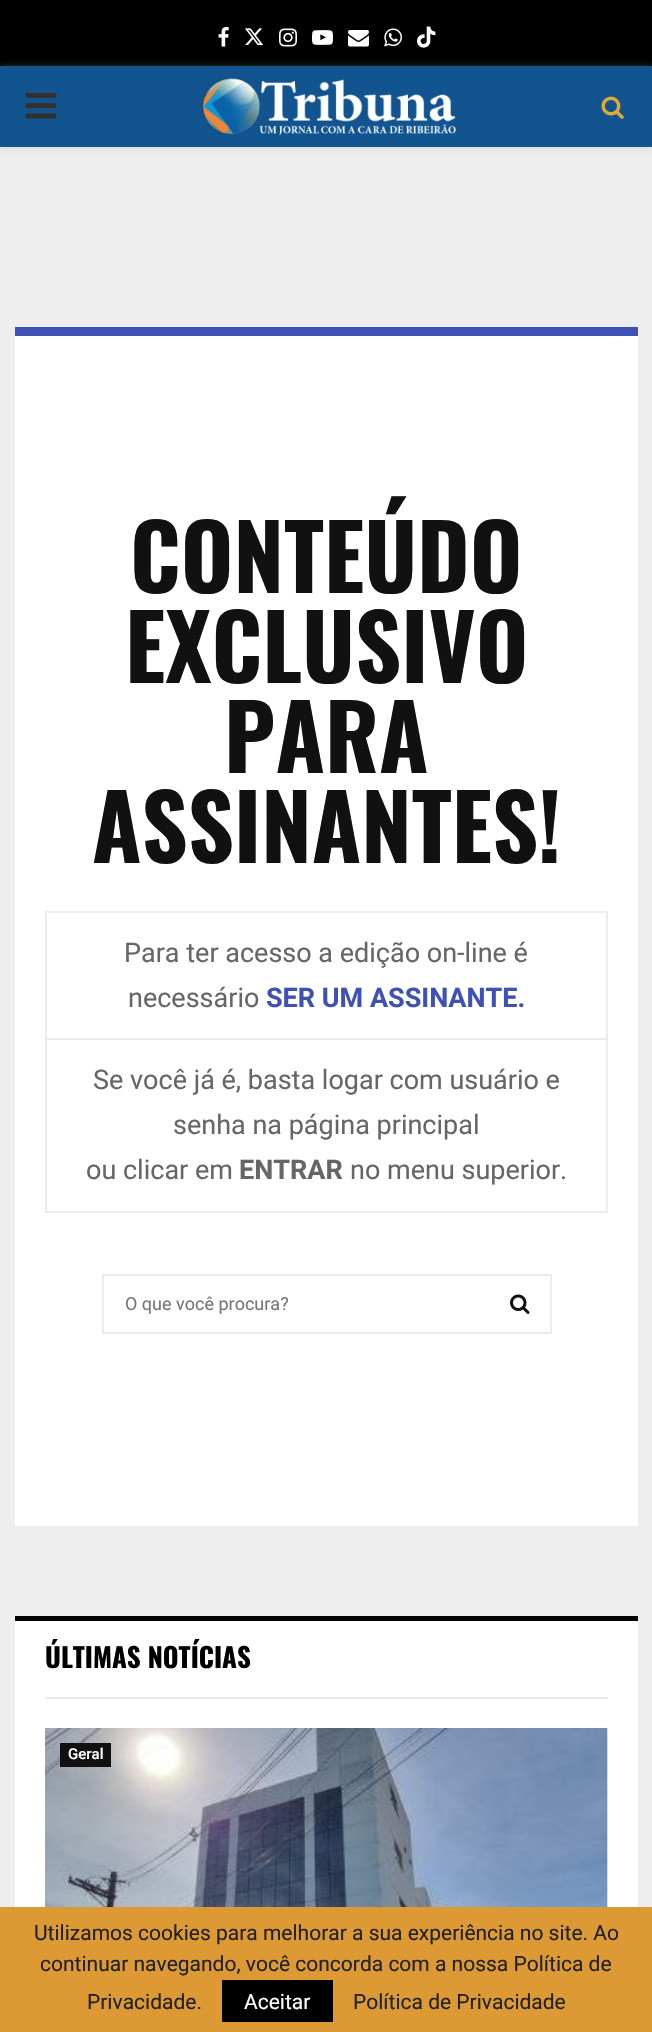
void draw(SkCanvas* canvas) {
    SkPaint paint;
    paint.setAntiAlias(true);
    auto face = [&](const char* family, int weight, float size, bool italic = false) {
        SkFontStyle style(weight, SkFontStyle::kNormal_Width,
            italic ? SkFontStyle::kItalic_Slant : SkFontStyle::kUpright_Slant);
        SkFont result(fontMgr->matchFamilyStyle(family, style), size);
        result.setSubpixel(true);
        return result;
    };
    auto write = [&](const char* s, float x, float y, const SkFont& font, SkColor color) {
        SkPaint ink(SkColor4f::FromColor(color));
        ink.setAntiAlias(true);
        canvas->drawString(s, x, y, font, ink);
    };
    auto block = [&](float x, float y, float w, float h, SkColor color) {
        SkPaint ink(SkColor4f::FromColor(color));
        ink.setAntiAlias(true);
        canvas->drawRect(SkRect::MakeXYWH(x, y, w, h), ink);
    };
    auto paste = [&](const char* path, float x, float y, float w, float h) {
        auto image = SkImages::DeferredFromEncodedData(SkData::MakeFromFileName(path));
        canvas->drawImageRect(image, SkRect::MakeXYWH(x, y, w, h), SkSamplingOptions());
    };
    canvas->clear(SkColorSetRGB(238, 238, 238));
    block(0, 0, 652, 66, SK_ColorBLACK);
    paste("pic1.png", 218, 27, 11, 20);
    paste("pic2.png", 244, 28, 20, 17);
    paste("pic3.png", 279, 28, 18, 19);
    paste("pic4.png", 312, 30, 21, 15);
    paste("pic5.png", 348, 30, 21, 17);
    paste("pic6.png", 384, 28, 18, 19);
    paste("pic7.png", 417, 26, 19, 22);
    paint.setColor(SkColorSetARGB(117, 190, 190, 190));
    paint.setMaskFilter(SkMaskFilter::MakeBlur(kNormal_SkBlurStyle, 4));
    canvas->drawRect(SkRect::MakeXYWH(0, 68, 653, 81), paint);
    paint.setMaskFilter(nullptr);
    block(0, 66, 652, 81, SkColorSetRGB(17, 84, 144));
    paste("pic8.png", 25, 92, 32, 27);
    paste("pic9.png", 201, 76, 255, 61);
    paste("pic10.png", 601, 96, 23, 23);
    block(15, 336, 623, 1190, SK_ColorWHITE);
    block(15, 327, 623, 9, SkColorSetRGB(63, 81, 181));
    auto kFont1 = face("Oswald", 700, 90);
    write("CONTEÚDO", 130, 593, kFont1, SkColorSetRGB(17, 17, 17));
    write("EXCLUSIVO", 125, 683, kFont1, SkColorSetRGB(17, 17, 17));
    write("PARA", 224, 773, kFont1, SkColorSetRGB(17, 17, 17));
    write("ASSINANTES!", 92, 863, kFont1, SkColorSetRGB(17, 17, 17));
    block(45, 911, 563, 2, SkColorSetRGB(236, 236, 236));
    block(45, 1038, 563, 2, SkColorSetRGB(236, 236, 236));
    block(606, 1038, 2, 174, SkColorSetRGB(236, 236, 236));
    block(606, 911, 2, 129, SkColorSetRGB(236, 236, 236));
    block(45, 1211, 563, 2, SkColorSetRGB(236, 236, 236));
    block(45, 1038, 2, 174, SkColorSetRGB(236, 236, 236));
    block(45, 911, 2, 129, SkColorSetRGB(236, 236, 236));
    auto kFont2 = face("Roboto", 400, 27);
    write("Para ter acesso a edição on-line é", 124, 962, kFont2, SkColorSetRGB(102, 102, 102));
    write("necessário", 128, 1007, kFont2, SkColorSetRGB(102, 102, 102));
    auto kFont3 = face("Roboto", 700, 27);
    write("SER UM ASSINANTE.", 266, 1007, kFont3, SkColorSetRGB(63, 81, 181));
    write("Se você já é, basta logar com usuário e", 93, 1089, kFont2, SkColorSetRGB(102, 102, 102));
    write("senha na página principal", 173, 1134, kFont2, SkColorSetRGB(102, 102, 102));
    write("ou clicar em", 86, 1179, kFont2, SkColorSetRGB(102, 102, 102));
    write("ENTRAR", 239, 1179, kFont3, SkColorSetRGB(102, 102, 102));
    write("no menu superior.", 350, 1179, kFont2, SkColorSetRGB(102, 102, 102));
    paint.setStyle(SkPaint::kStroke_Style);
    paint.setStrokeWidth(2);
    paint.setColor(SkColorSetRGB(236, 236, 236));
    canvas->drawRect(SkRect::MakeXYWH(103, 1275, 448, 58), paint);
    auto kFont4 = face("Roboto", 400, 18);
    write("O que você procura?", 125, 1310, kFont4, SkColorSetRGB(117, 117, 117));
    paste("pic11.png", 510, 1294, 20, 20);
    block(15, 1621, 623, 286, SK_ColorWHITE);
    block(45, 1697, 563, 2, SkColorSetRGB(236, 236, 236));
    block(15, 1616, 623, 5, SK_ColorBLACK);
    auto kFont5 = face("Oswald", 700, 27);
    write("ÚLTIMAS NOTÍCIAS", 45, 1668, kFont5, SK_ColorBLACK);
    block(607, 1728, 1, 179, SkColorSetRGB(245, 245, 245));
    paste("pic12.png", 45, 1728, 563, 179);
    block(60, 1743, 51, 24, SkColorSetRGB(17, 17, 17));
    auto kFont6 = face("Roboto", 500, 15);
    write("Geral", 68, 1759, kFont6, SK_ColorWHITE);
    block(0, 1907, 652, 125, SkColorSetRGB(221, 153, 51));
    auto kFont7 = face("Roboto", 400, 21);
    write("Utilizamos cookies para melhorar a sua experiência no site. Ao", 34, 1940, kFont7, SkColorSetRGB(33, 33, 33));
    write("continuar navegando, você concorda com a nossa Política de", 40, 1971, kFont7, SkColorSetRGB(33, 33, 33));
    write("Privacidade.", 87, 2009, kFont7, SkColorSetRGB(33, 33, 33));
    block(222, 1980, 111, 42, SK_ColorBLACK);
    write("Aceitar", 244, 2009, kFont7, SK_ColorWHITE);
    write("Política de Privacidade", 353, 2009, kFont7, SkColorSetRGB(33, 33, 33));
}
